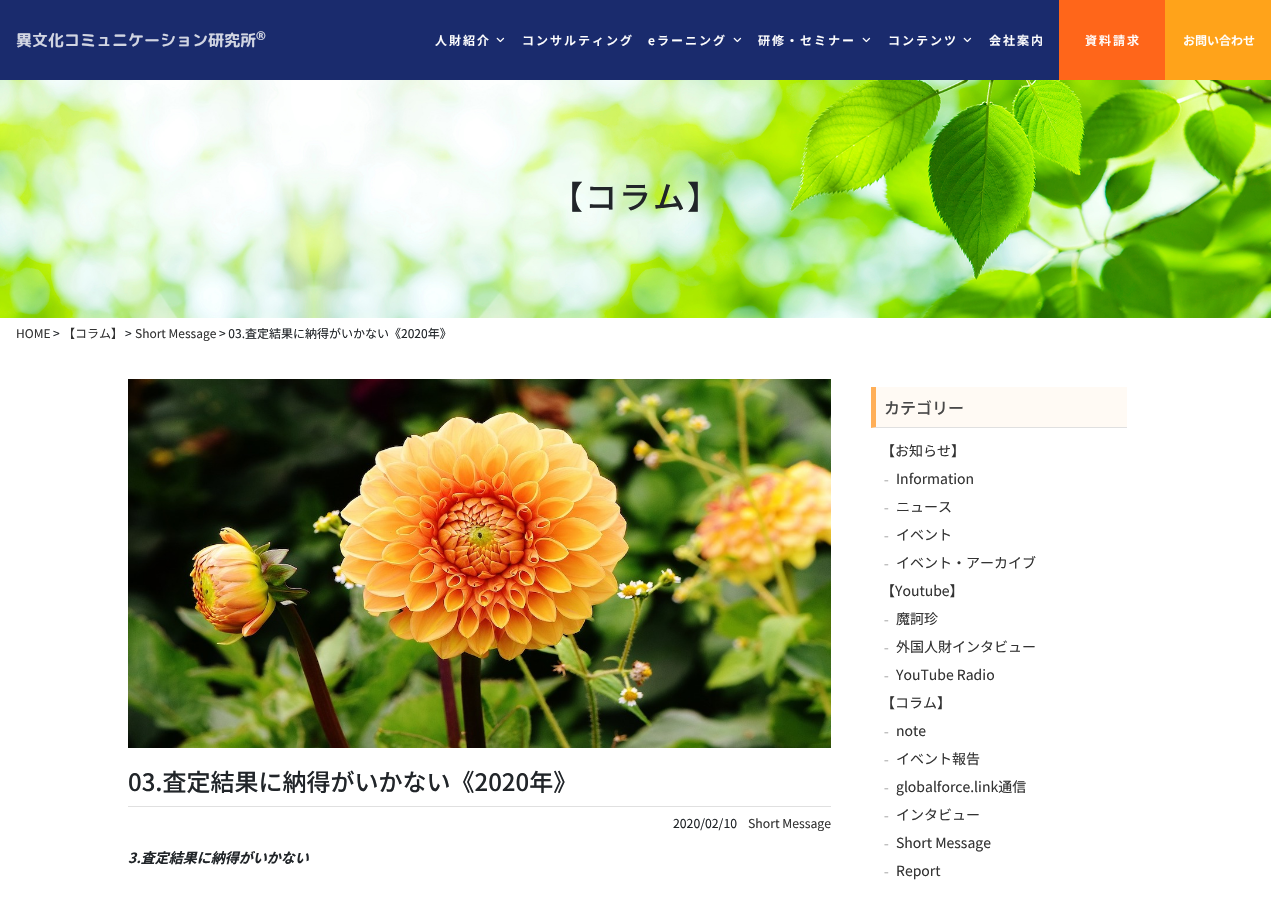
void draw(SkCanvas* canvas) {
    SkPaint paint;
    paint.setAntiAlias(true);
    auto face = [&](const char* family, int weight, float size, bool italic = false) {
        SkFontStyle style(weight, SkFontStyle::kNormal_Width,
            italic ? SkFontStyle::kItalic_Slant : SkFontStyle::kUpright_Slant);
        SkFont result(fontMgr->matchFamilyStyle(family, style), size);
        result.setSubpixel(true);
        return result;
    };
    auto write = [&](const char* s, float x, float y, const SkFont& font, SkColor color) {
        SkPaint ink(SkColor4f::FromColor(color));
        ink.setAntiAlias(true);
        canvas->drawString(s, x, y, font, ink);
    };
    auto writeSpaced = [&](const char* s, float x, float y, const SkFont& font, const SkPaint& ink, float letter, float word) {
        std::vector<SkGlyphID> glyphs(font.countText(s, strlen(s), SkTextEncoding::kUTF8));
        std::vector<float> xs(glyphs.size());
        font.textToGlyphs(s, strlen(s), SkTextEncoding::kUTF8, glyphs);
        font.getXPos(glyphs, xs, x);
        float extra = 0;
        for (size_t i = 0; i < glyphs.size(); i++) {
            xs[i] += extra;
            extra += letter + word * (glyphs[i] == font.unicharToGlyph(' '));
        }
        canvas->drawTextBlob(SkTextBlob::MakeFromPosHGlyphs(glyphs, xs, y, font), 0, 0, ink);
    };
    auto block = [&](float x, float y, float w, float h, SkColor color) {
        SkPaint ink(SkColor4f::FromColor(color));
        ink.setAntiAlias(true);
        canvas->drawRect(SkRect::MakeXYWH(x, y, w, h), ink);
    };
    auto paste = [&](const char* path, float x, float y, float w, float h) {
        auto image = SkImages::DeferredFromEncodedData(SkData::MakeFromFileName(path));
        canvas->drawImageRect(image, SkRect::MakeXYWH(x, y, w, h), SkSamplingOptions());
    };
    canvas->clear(SK_ColorWHITE);
    block(0, 0, 1059, 80, SkColorSetRGB(26, 43, 109));
    auto kFont1 = face("Rounded Mplus 1c Bold", 700, 16);
    write("異文化コミュニケーション研究所", 16, 46, kFont1, SkColorSetRGB(209, 213, 226));
    auto kFont2 = face("Rounded Mplus 1c Bold", 700, 12);
    write("®", 256, 40, kFont2, SkColorSetRGB(209, 213, 226));
    auto kFont3 = face("Noto Sans JP", 600, 12);
    paint.setColor(SK_ColorWHITE);
    writeSpaced("人財紹介", 435, 45, kFont3, paint, 2, 0);
    paste("pic1.png", 496, 37, 9, 6);
    writeSpaced("コンサルティング", 522, 45, kFont3, paint, 2, 0);
    writeSpaced("eラーニング", 648, 45, kFont3, paint, 2, 0);
    paste("pic1.png", 733, 37, 9, 6);
    writeSpaced("研修・セミナー", 758, 45, kFont3, paint, 2, 0);
    paste("pic1.png", 862, 37, 9, 6);
    writeSpaced("コンテンツ", 888, 45, kFont3, paint, 2, 0);
    paste("pic1.png", 963, 37, 9, 6);
    writeSpaced("会社案内", 989, 45, kFont3, paint, 2, 0);
    block(1059, 0, 106, 80, SkColorSetRGB(255, 102, 26));
    writeSpaced("資料請求", 1085, 45, kFont3, paint, 2, 0);
    block(1165, 0, 106, 80, SkColorSetRGB(255, 163, 26));
    write("お問い合わせ", 1183, 45, kFont3, SK_ColorWHITE);
    paste("pic2.png", 0, 80, 1271, 238);
    auto kFont4 = face("Noto Sans JP", 500, 32);
    paint.setColor(SkColorSetRGB(33, 37, 41));
    writeSpaced("【コラム】", 551, 209, kFont4, paint, 2, 0);
    auto kFont5 = face("Noto Sans JP", 400, 12);
    write("HOME", 16, 338, kFont5, SkColorSetRGB(51, 51, 51));
    write(">", 53, 338, kFont5, SkColorSetRGB(33, 37, 41));
    write("【コラム】", 63, 338, kFont5, SkColorSetRGB(51, 51, 51));
    write(">", 125, 338, kFont5, SkColorSetRGB(33, 37, 41));
    write("Short Message", 135, 338, kFont5, SkColorSetRGB(51, 51, 51));
    write("> 03.査定結果に納得がいかない《2020年》", 219, 338, kFont5, SkColorSetRGB(33, 37, 41));
    paste("pic3.png", 128, 379, 703, 369);
    block(128, 806, 703, 1, SkColorSetRGB(224, 224, 224));
    auto kFont6 = face("Noto Sans JP", 500, 24);
    write("03.査定結果に納得がいかない《2020年》", 128, 791, kFont6, SkColorSetRGB(33, 37, 41));
    auto kFont7 = face("Noto Sans JP", 400, 12.25f);
    write("2020/02/10", 673, 828, kFont7, SkColorSetRGB(33, 37, 41));
    write("Short Message", 748, 828, kFont7, SkColorSetRGB(51, 51, 51));
    auto kFont8 = face("Noto Sans JP", 700, 14, true);
    write("3.査定結果に納得がいかない", 128, 863, kFont8, SkColorSetRGB(33, 37, 41));
    block(871, 387, 256, 41, SkColorSetRGB(255, 250, 244));
    paint.setColor(SkColorSetRGB(224, 224, 224));
    canvas->drawPath(SkPathBuilder().moveTo(1127, 428).lineTo(871, 428).lineTo(876, 427).lineTo(1127, 427).close().detach(), paint);
    paint.setColor(SkColorSetRGB(255, 175, 88));
    canvas->drawPath(SkPathBuilder().moveTo(871, 428).lineTo(871, 387).lineTo(876, 387).lineTo(876, 427).close().detach(), paint);
    auto kFont9 = face("Noto Sans JP", 500, 16);
    write("カテゴリー", 884, 414, kFont9, SkColorSetRGB(73, 73, 73));
    auto kFont10 = face("Noto Sans JP", 400, 14);
    write("【お知らせ】", 881, 456, kFont10, SkColorSetRGB(51, 51, 51));
    auto kFont11 = face("Liberation Serif", 700, 14);
    write("-", 884, 484, kFont11, SkColorSetRGB(187, 187, 187));
    write("Information", 896, 484, kFont10, SkColorSetRGB(51, 51, 51));
    write("-", 884, 512, kFont11, SkColorSetRGB(187, 187, 187));
    write("ニュース", 896, 512, kFont10, SkColorSetRGB(51, 51, 51));
    write("-", 884, 540, kFont11, SkColorSetRGB(187, 187, 187));
    write("イベント", 896, 540, kFont10, SkColorSetRGB(51, 51, 51));
    write("-", 884, 568, kFont11, SkColorSetRGB(187, 187, 187));
    write("イベント・アーカイブ", 896, 568, kFont10, SkColorSetRGB(51, 51, 51));
    write("【Youtube】", 881, 596, kFont10, SkColorSetRGB(51, 51, 51));
    write("-", 884, 624, kFont11, SkColorSetRGB(187, 187, 187));
    write("魔訶珍", 896, 624, kFont10, SkColorSetRGB(51, 51, 51));
    write("-", 884, 652, kFont11, SkColorSetRGB(187, 187, 187));
    write("外国人財インタビュー", 896, 652, kFont10, SkColorSetRGB(51, 51, 51));
    write("-", 884, 680, kFont11, SkColorSetRGB(187, 187, 187));
    write("YouTube Radio", 896, 680, kFont10, SkColorSetRGB(51, 51, 51));
    write("【コラム】", 881, 708, kFont10, SkColorSetRGB(51, 51, 51));
    write("-", 884, 736, kFont11, SkColorSetRGB(187, 187, 187));
    write("note", 896, 736, kFont10, SkColorSetRGB(51, 51, 51));
    write("-", 884, 764, kFont11, SkColorSetRGB(187, 187, 187));
    write("イベント報告", 896, 764, kFont10, SkColorSetRGB(51, 51, 51));
    write("-", 884, 792, kFont11, SkColorSetRGB(187, 187, 187));
    write("globalforce.link通信", 896, 792, kFont10, SkColorSetRGB(51, 51, 51));
    write("-", 884, 820, kFont11, SkColorSetRGB(187, 187, 187));
    write("インタビュー", 896, 820, kFont10, SkColorSetRGB(51, 51, 51));
    write("-", 884, 848, kFont11, SkColorSetRGB(187, 187, 187));
    write("Short Message", 896, 848, kFont10, SkColorSetRGB(51, 51, 51));
    write("-", 884, 876, kFont11, SkColorSetRGB(187, 187, 187));
    write("Report", 896, 876, kFont10, SkColorSetRGB(51, 51, 51));
}
